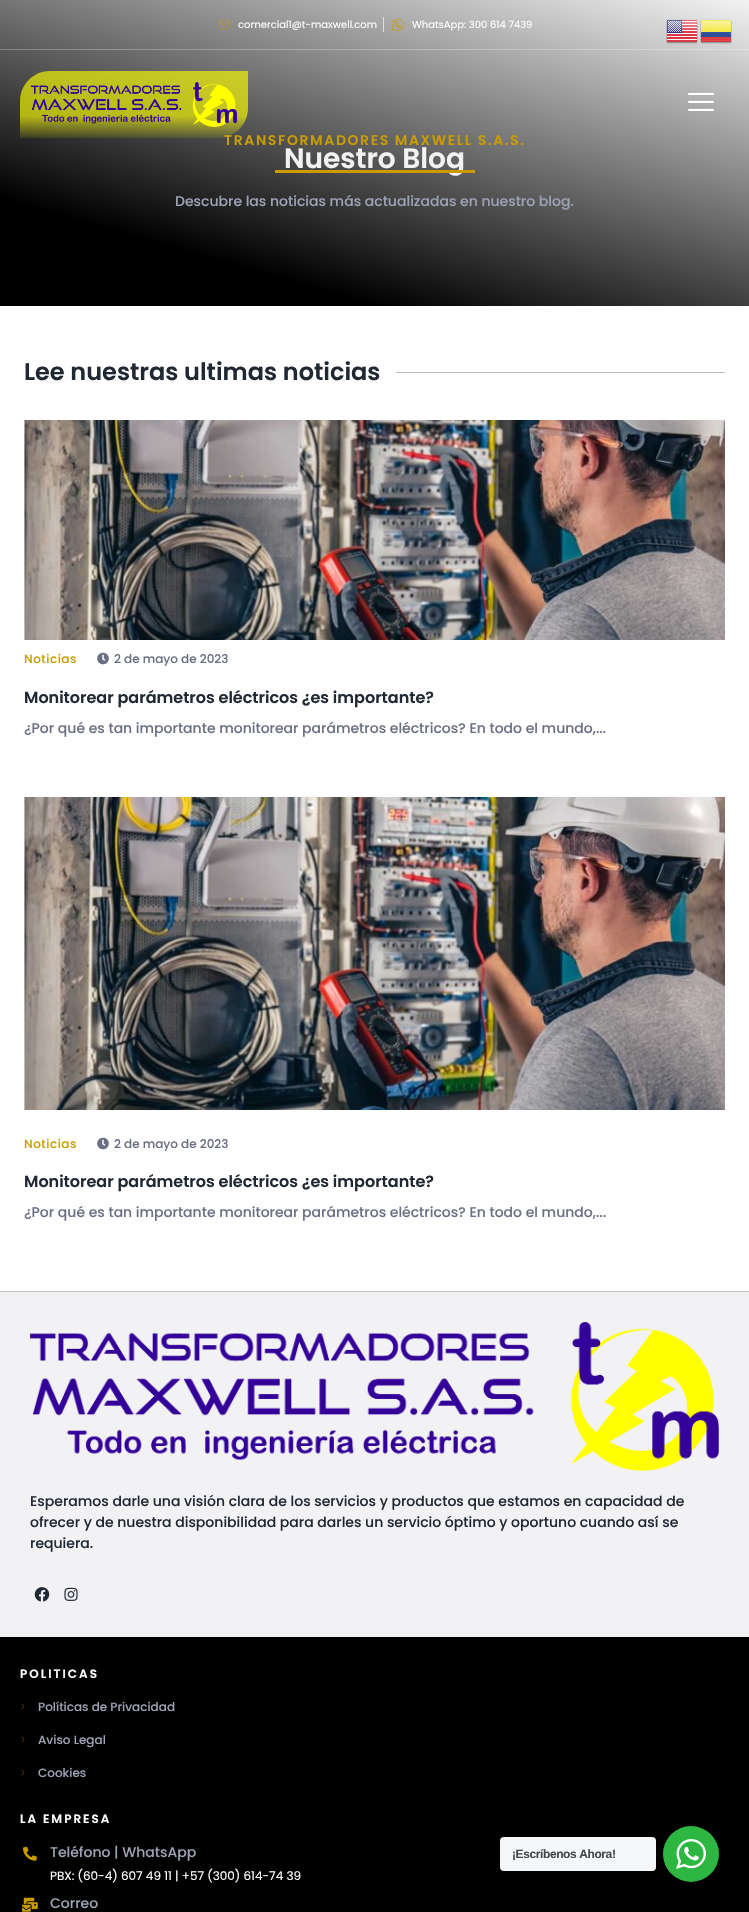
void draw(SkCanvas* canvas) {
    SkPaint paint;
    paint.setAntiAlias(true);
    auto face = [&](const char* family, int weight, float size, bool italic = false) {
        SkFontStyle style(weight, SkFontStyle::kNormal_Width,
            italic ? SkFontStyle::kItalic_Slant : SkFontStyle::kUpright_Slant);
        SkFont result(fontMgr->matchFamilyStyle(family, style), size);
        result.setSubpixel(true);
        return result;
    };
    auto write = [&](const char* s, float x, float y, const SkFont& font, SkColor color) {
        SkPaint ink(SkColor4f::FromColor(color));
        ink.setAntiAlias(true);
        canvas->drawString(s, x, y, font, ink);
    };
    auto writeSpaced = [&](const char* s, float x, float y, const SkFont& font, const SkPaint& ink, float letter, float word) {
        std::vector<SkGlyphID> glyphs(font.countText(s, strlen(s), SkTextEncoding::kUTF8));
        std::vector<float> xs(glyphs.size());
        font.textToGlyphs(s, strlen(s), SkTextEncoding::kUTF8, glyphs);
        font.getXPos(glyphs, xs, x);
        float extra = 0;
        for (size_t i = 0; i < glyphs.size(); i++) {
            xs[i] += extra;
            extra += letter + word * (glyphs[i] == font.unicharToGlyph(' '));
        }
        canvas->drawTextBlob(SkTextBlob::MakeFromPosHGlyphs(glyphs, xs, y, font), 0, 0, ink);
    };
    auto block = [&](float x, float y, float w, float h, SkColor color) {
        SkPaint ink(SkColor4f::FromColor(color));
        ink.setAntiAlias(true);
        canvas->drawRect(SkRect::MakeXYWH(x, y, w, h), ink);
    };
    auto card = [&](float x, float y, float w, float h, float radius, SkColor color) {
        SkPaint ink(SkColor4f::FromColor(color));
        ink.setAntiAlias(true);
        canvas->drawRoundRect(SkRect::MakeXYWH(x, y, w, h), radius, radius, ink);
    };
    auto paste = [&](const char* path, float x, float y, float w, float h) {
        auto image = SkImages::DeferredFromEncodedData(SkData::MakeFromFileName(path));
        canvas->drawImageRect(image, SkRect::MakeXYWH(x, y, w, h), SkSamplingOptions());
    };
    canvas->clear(SK_ColorWHITE);
    {
        const SkColor colors[] = {SK_ColorBLACK, SK_ColorWHITE};
        const float stops[] = {0.2f, 1};
        const SkPoint ends[] = {{303, 393}, {446, -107}};
        paint.setShader(SkGradientShader::MakeLinear(ends, colors, stops, 2, SkTileMode::kClamp));
        paint.setAlpha(255);
    }
    canvas->drawRect(SkRect::MakeXYWH(0, 0, 749, 306), paint);
    paste("pic1.png", 218, 20, 12, 9);
    auto kFont1 = face("Poppins", 400, 10);
    write("comercial1@t-maxwell.com", 238, 28, kFont1, SkColorSetRGB(252, 252, 252));
    block(383, 17, 1, 15, SkColorSetRGB(221, 221, 221));
    paste("pic2.png", 392, 18, 12, 13);
    write("WhatsApp: 300 614 7439", 412, 28, kFont1, SkColorSetRGB(252, 252, 252));
    auto kFont2 = face("Poppins", 600, 14);
    paint.setShader(nullptr);
    paint.setColor(SkColorSetRGB(201, 156, 0));
    writeSpaced("TRANSFORMADORES MAXWELL S.A.S.", 224, 145, kFont2, paint, 1.6f, 0);
    {
        const SkColor colors[] = {SkColorSetARGB(163, 255, 255, 0), SkColorSetARGB(23, 255, 255, 0)};
        const float stops[] = {0.67f, 1};
        const SkPoint ends[] = {{134, 71}, {134, 138}};
        paint.setShader(SkGradientShader::MakeLinear(ends, colors, stops, 2, SkTileMode::kClamp));
        paint.setAlpha(255);
    }
    canvas->drawPath(SkPathBuilder().moveTo(50, 71).lineTo(248, 71).lineTo(248, 108).cubicTo(248, 124.5f, 234.5f, 138, 218, 138).lineTo(20, 138).lineTo(20, 101).cubicTo(20, 84.5f, 33.5f, 71, 50, 71).close().detach(), paint);
    paste("pic3.png", 31, 82, 206, 45);
    paste("pic4.png", 688, 92, 26, 19);
    {
        const SkColor colors[] = {SkColorSetRGB(66, 66, 66), SK_ColorWHITE};
        const float stops[] = {0.2f, 1};
        const SkPoint ends[] = {{303, 393}, {446, -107}};
        paint.setShader(SkGradientShader::MakeLinear(ends, colors, stops, 2, SkTileMode::kClamp));
        paint.setAlpha(255);
    }
    canvas->drawRect(SkRect::MakeXYWH(0, 49, 749, 1), paint);
    auto kFont3 = face("Poppins", 600, 28);
    write("Nuestro Blog", 284, 168, kFont3, SkColorSetRGB(242, 242, 244));
    block(275, 170, 200, 3, SkColorSetRGB(201, 156, 0));
    auto kFont4 = face("Poppins", 500, 14);
    write("Descubre las noticias más actualizadas en nuestro blog.", 175, 206, kFont4, SkColorSetRGB(156, 163, 181));
    auto kFont5 = face("Poppins", 600, 24);
    write("Lee nuestras ultimas noticias", 24, 380, kFont5, SkColorSetRGB(32, 40, 51));
    block(396, 372, 329, 1, SkColorSetRGB(189, 189, 189));
    block(24, 420, 1, 220, SkColorSetRGB(234, 234, 235));
    paste("pic5.png", 24, 420, 701, 220);
    auto kFont6 = face("Poppins", 500, 12);
    paint.setShader(nullptr);
    paint.setColor(SkColorSetRGB(201, 156, 0));
    writeSpaced("Noticias", 24, 663, kFont6, paint, 0.5f, 0);
    paste("pic6.png", 97, 652, 12, 13);
    write("2 de mayo de 2023", 114, 663, kFont6, SkColorSetRGB(106, 111, 131));
    auto kFont7 = face("Poppins", 600, 16);
    write("Monitorear parámetros eléctricos ¿es importante?", 24, 703, kFont7, SkColorSetRGB(32, 40, 51));
    write("¿Por qué es tan importante monitorear parámetros eléctricos? En todo el mundo,...", 24, 733, kFont4, SkColorSetRGB(106, 111, 131));
    block(24, 797, 1, 313, SkColorSetRGB(234, 234, 235));
    paste("pic7.png", 24, 797, 701, 313);
    writeSpaced("Noticias", 24, 1148, kFont6, paint, 0.5f, 0);
    paste("pic6.png", 97, 1137, 12, 13);
    write("2 de mayo de 2023", 114, 1148, kFont6, SkColorSetRGB(106, 111, 131));
    write("Monitorear parámetros eléctricos ¿es importante?", 24, 1187, kFont7, SkColorSetRGB(32, 40, 51));
    write("¿Por qué es tan importante monitorear parámetros eléctricos? En todo el mundo,...", 24, 1217, kFont4, SkColorSetRGB(106, 111, 131));
    block(0, 1637, 749, 275, SK_ColorBLACK);
    block(0, 1292, 749, 345, SkColorSetRGB(242, 242, 244));
    block(0, 1291, 749, 1, SkColorSetRGB(192, 194, 198));
    paste("pic8.png", 30, 1322, 689, 149);
    write("Esperamos darle una visión clara de los servicios y productos que estamos en capacidad de", 30, 1506, kFont4, SkColorSetRGB(32, 40, 51));
    write("ofrecer y de nuestra disponibilidad para darles un servicio óptimo y oportuno cuando así se", 30, 1527, kFont4, SkColorSetRGB(32, 40, 51));
    write("requiera.", 30, 1548, kFont4, SkColorSetRGB(32, 40, 51));
    paste("pic9.png", 34, 1587, 16, 15);
    paste("pic10.png", 64, 1587, 14, 14);
    auto kFont8 = face("Poppins", 600, 12);
    paint.setColor(SkColorSetRGB(252, 252, 252));
    writeSpaced("POLITICAS", 20, 1678, kFont8, paint, 2, 0);
    paste("pic11.png", 21, 1703, 4, 7);
    write("Políticas de Privacidad", 38, 1711, kFont6, SkColorSetRGB(156, 163, 181));
    paste("pic11.png", 21, 1736, 4, 7);
    write("Aviso Legal", 38, 1744, kFont6, SkColorSetRGB(156, 163, 181));
    paste("pic11.png", 21, 1769, 4, 7);
    write("Cookies", 38, 1777, kFont6, SkColorSetRGB(156, 163, 181));
    writeSpaced("LA EMPRESA", 20, 1823, kFont8, paint, 2, 0);
    paste("pic12.png", 23, 1846, 14, 15);
    write("Teléfono | WhatsApp", 50, 1857, kFont4, SkColorSetRGB(156, 163, 181));
    auto kFont9 = face("Poppins", 400, 12);
    write("PBX: (60-4) 607 49 11 | +57 (300) 614-74 39", 50, 1880, kFont9, SkColorSetRGB(252, 252, 252));
    paste("pic13.png", 22, 1897, 16, 15);
    write("Correo", 50, 1908, kFont4, SkColorSetRGB(156, 163, 181));
    paste("pic14.png", 666, 19, 32, 25);
    paste("pic15.png", 700, 19, 32, 25);
    card(500, 1837, 156, 34, 4, SkColorSetRGB(245, 247, 249));
    auto kFont10 = face("Liberation Sans", 700, 12);
    paint.setColor(SkColorSetRGB(67, 71, 78));
    writeSpaced("¡Escríbenos Ahora!", 512, 1858, kFont10, paint, -0.4f, 0);
    paint.setColor(SkColorSetRGB(45, 183, 66));
    canvas->drawCircle(691, 1854, 28, paint);
    paste("pic16.png", 676, 1839, 30, 30);
}
